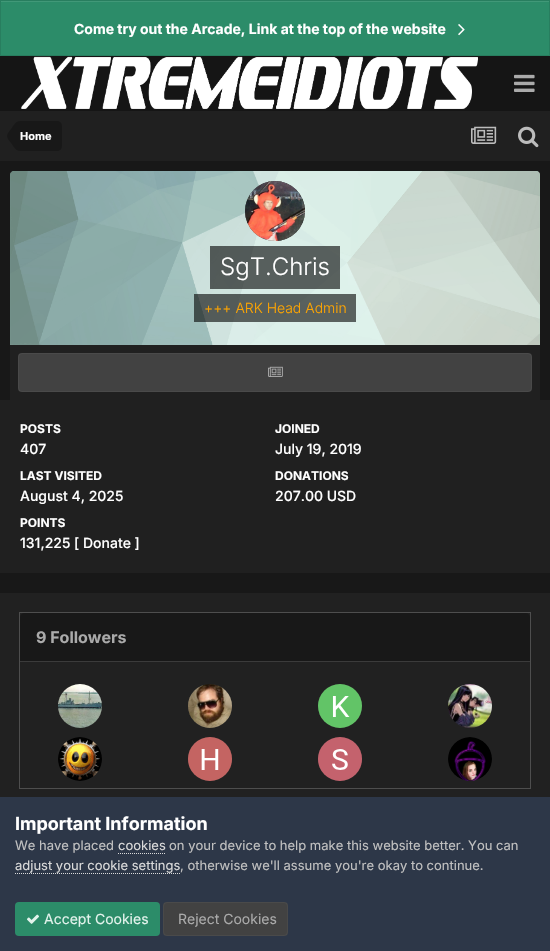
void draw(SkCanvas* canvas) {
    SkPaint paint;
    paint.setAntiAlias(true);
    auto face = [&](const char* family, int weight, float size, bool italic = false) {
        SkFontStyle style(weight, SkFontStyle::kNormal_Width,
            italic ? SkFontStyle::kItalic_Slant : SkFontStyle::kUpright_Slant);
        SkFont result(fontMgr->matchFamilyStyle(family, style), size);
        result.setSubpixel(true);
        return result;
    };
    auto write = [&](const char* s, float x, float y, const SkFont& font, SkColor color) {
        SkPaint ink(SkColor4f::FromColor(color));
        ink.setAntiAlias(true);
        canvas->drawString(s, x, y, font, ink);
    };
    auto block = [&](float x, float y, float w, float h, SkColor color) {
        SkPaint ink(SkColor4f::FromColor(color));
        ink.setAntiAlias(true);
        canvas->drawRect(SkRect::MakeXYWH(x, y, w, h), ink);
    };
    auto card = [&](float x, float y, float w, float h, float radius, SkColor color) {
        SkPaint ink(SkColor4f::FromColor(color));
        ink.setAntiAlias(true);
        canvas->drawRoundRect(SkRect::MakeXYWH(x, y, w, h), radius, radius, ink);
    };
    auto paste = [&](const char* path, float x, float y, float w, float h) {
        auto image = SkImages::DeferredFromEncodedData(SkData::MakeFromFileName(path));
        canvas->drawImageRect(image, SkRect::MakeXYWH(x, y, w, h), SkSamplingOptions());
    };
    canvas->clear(SkColorSetRGB(24, 24, 24));
    block(1, 2, 548, 53, SkColorSetRGB(44, 140, 105));
    block(1, 1, 548, 1, SkColorSetRGB(65, 152, 120));
    paint.setStyle(SkPaint::kStroke_Style);
    paint.setStrokeWidth(1);
    paint.setColor(SkColorSetRGB(40, 126, 95));
    canvas->drawRect(SkRect::MakeXYWH(0.5f, 0.5f, 549, 55), paint);
    auto kFont1 = face("Inter", 700, 14);
    write("Come try out the Arcade, Link at the top of the website", 74, 34, kFont1, SK_ColorWHITE);
    paste("pic1.png", 458, 24, 7, 12);
    block(0, 56, 550, 55, SkColorSetRGB(21, 21, 21));
    paste("pic2.png", 21, 56, 457, 53);
    paste("pic3.png", 514, 74, 21, 18);
    block(0, 111, 550, 50, SkColorSetRGB(32, 32, 32));
    paint.setStyle(SkPaint::kFill_Style);
    paint.setColor(SkColorSetRGB(24, 24, 24));
    canvas->drawPath(SkPathBuilder().moveTo(20, 121).lineTo(57, 121).cubicTo(60, 121, 62, 123, 62, 126).lineTo(62, 146).cubicTo(62, 149, 60, 151, 57, 151).lineTo(20, 151).close().detach(), paint);
    canvas->drawPath(SkPathBuilder().moveTo(20, 136).lineTo(20, 151).cubicTo(15.5f, 151, 13.5f, 146.5f, 11, 143).cubicTo(9.5f, 141, 7, 139, 7, 136).close().moveTo(20, 136).lineTo(7, 136).cubicTo(7, 133, 9.5f, 131, 11, 129).cubicTo(13.5f, 125.5f, 15.5f, 121, 20, 121).close().detach(), paint);
    auto kFont2 = face("Inter", 700, 11);
    write("Home", 20, 140, kFont2, SK_ColorWHITE);
    paste("pic4.png", 471, 126, 26, 18);
    paste("pic5.png", 518, 126, 21, 22);
    paint.setColor(SkColorSetRGB(153, 255, 223));
    canvas->drawPath(SkPathBuilder().moveTo(14, 171).lineTo(536, 171).cubicTo(538, 171, 540, 173, 540, 175).lineTo(540, 345).lineTo(10, 345).lineTo(10, 175).cubicTo(10, 173, 12, 171, 14, 171).close().detach(), paint);
    paste("pic6.png", 10, 171, 530, 174);
    paint.setColor(SkColorSetRGB(50, 50, 50));
    canvas->drawCircle(275, 211, 30, paint);
    paste("pic7.png", 245, 181, 60, 60);
    block(210, 246, 130, 43, SkColorSetARGB(153, 0, 0, 0));
    auto kFont3 = face("Inter", 300, 24);
    write("SgT.Chris", 220, 275, kFont3, SK_ColorWHITE);
    block(194, 294, 162, 28, SkColorSetARGB(153, 0, 0, 0));
    auto kFont4 = face("Inter", 300, 14);
    write("+++ ARK Head Admin", 204, 313, kFont4, SkColorSetRGB(255, 165, 0));
    block(10, 345, 530, 55, SkColorSetRGB(32, 32, 32));
    card(18, 353, 514, 39, 4, SkColorSetRGB(66, 66, 66));
    paint.setStyle(SkPaint::kStroke_Style);
    paint.setColor(SkColorSetARGB(18, 170, 170, 170));
    canvas->drawRoundRect(SkRect::MakeXYWH(18.5f, 353.5f, 513, 38), 3.5f, 3.5f, paint);
    paste("pic8.png", 268, 366, 15, 11);
    block(0, 400, 550, 173, SkColorSetRGB(32, 32, 32));
    auto kFont5 = face("Inter", 700, 12);
    write("POSTS", 20, 433, kFont5, SK_ColorWHITE);
    auto kFont6 = face("Inter", 500, 14);
    write("407", 20, 454, kFont6, SK_ColorWHITE);
    write("JOINED", 275, 433, kFont5, SK_ColorWHITE);
    write("July 19, 2019", 275, 454, kFont6, SK_ColorWHITE);
    write("LAST VISITED", 20, 480, kFont5, SK_ColorWHITE);
    write("August 4, 2025", 20, 501, kFont6, SK_ColorWHITE);
    write("DONATIONS", 275, 480, kFont5, SK_ColorWHITE);
    write("207.00 USD", 275, 501, kFont6, SK_ColorWHITE);
    write("POINTS", 20, 527, kFont5, SK_ColorWHITE);
    write("131,225 [ Donate ]", 20, 548, kFont6, SK_ColorWHITE);
    block(0, 593, 550, 204, SkColorSetRGB(33, 33, 33));
    paint.setColor(SkColorSetRGB(78, 78, 78));
    canvas->drawRect(SkRect::MakeXYWH(19.5f, 612.5f, 511, 176), paint);
    paint.setStyle(SkPaint::kFill_Style);
    paint.setColor(SkColorSetRGB(24, 24, 24));
    canvas->drawPath(SkPathBuilder().moveTo(24, 613).lineTo(526, 613).cubicTo(528, 613, 530, 615, 530, 617).lineTo(530, 662).lineTo(20, 662).lineTo(20, 617).cubicTo(20, 615, 22, 613, 24, 613).close().detach(), paint);
    block(20, 661, 510, 1, SkColorSetRGB(59, 59, 59));
    auto kFont7 = face("Inter", 700, 16);
    write("9 Followers", 36, 643, kFont7, SkColorSetRGB(170, 170, 170));
    paint.setColor(SkColorSetRGB(50, 50, 50));
    canvas->drawCircle(80, 706, 22, paint);
    paste("pic9.png", 58, 684, 44, 44);
    canvas->drawCircle(210, 706, 22, paint);
    paste("pic10.png", 188, 684, 44, 44);
    canvas->drawCircle(340, 706, 22, paint);
    paste("pic11.png", 318, 684, 44, 44);
    canvas->drawCircle(470, 706, 22, paint);
    paste("pic12.png", 448, 684, 44, 44);
    canvas->drawCircle(80, 759, 22, paint);
    paste("pic13.png", 58, 737, 44, 44);
    canvas->drawCircle(210, 759, 22, paint);
    paste("pic14.png", 188, 737, 44, 44);
    canvas->drawCircle(340, 759, 22, paint);
    paste("pic15.png", 318, 737, 44, 44);
    canvas->drawCircle(470, 759, 22, paint);
    paste("pic16.png", 448, 737, 44, 44);
    block(0, 797, 550, 154, SkColorSetRGB(45, 55, 72));
    auto kFont8 = face("Inter", 700, 18);
    write("Important Information", 15, 830, kFont8, SK_ColorWHITE);
    auto kFont9 = face("Inter", 400, 13);
    write("We have placed", 15, 850, kFont9, SkColorSetRGB(192, 192, 192));
    write("cookies", 118, 850, kFont9, SkColorSetRGB(218, 218, 218));
    paint.setStyle(SkPaint::kStroke_Style);
    paint.setColor(SkColorSetRGB(218, 218, 218));
    paint.setPathEffect(SkDashPathEffect::Make({{1, 1}}, 0));
    canvas->drawPath(SkPathBuilder().moveTo(118, 853.5f).lineTo(165, 853.5f).detach(), paint);
    paint.setPathEffect(nullptr);
    write("on your device to help make this website better. You can", 169, 850, kFont9, SkColorSetRGB(192, 192, 192));
    write("adjust your cookie settings", 15, 870, kFont9, SkColorSetRGB(218, 218, 218));
    paint.setPathEffect(SkDashPathEffect::Make({{1, 1}}, 0));
    canvas->drawPath(SkPathBuilder().moveTo(15, 873.5f).lineTo(180, 873.5f).detach(), paint);
    paint.setPathEffect(nullptr);
    write(", otherwise we'll assume you're okay to continue.", 180, 870, kFont9, SkColorSetRGB(192, 192, 192));
    card(15, 902, 145, 34, 4, SkColorSetRGB(44, 140, 105));
    paste("pic17.png", 27, 914, 12, 10);
    auto kFont10 = face("Inter", 400, 14);
    write("Accept Cookies", 44, 924, kFont10, SkColorSetRGB(227, 243, 236));
    card(163, 902, 125, 34, 4, SkColorSetRGB(66, 66, 66));
    paint.setColor(SkColorSetARGB(18, 170, 170, 170));
    canvas->drawRoundRect(SkRect::MakeXYWH(163.5f, 902.5f, 124, 33), 3.5f, 3.5f, paint);
    write("Reject Cookies", 178, 924, kFont10, SkColorSetRGB(170, 170, 170));
}
